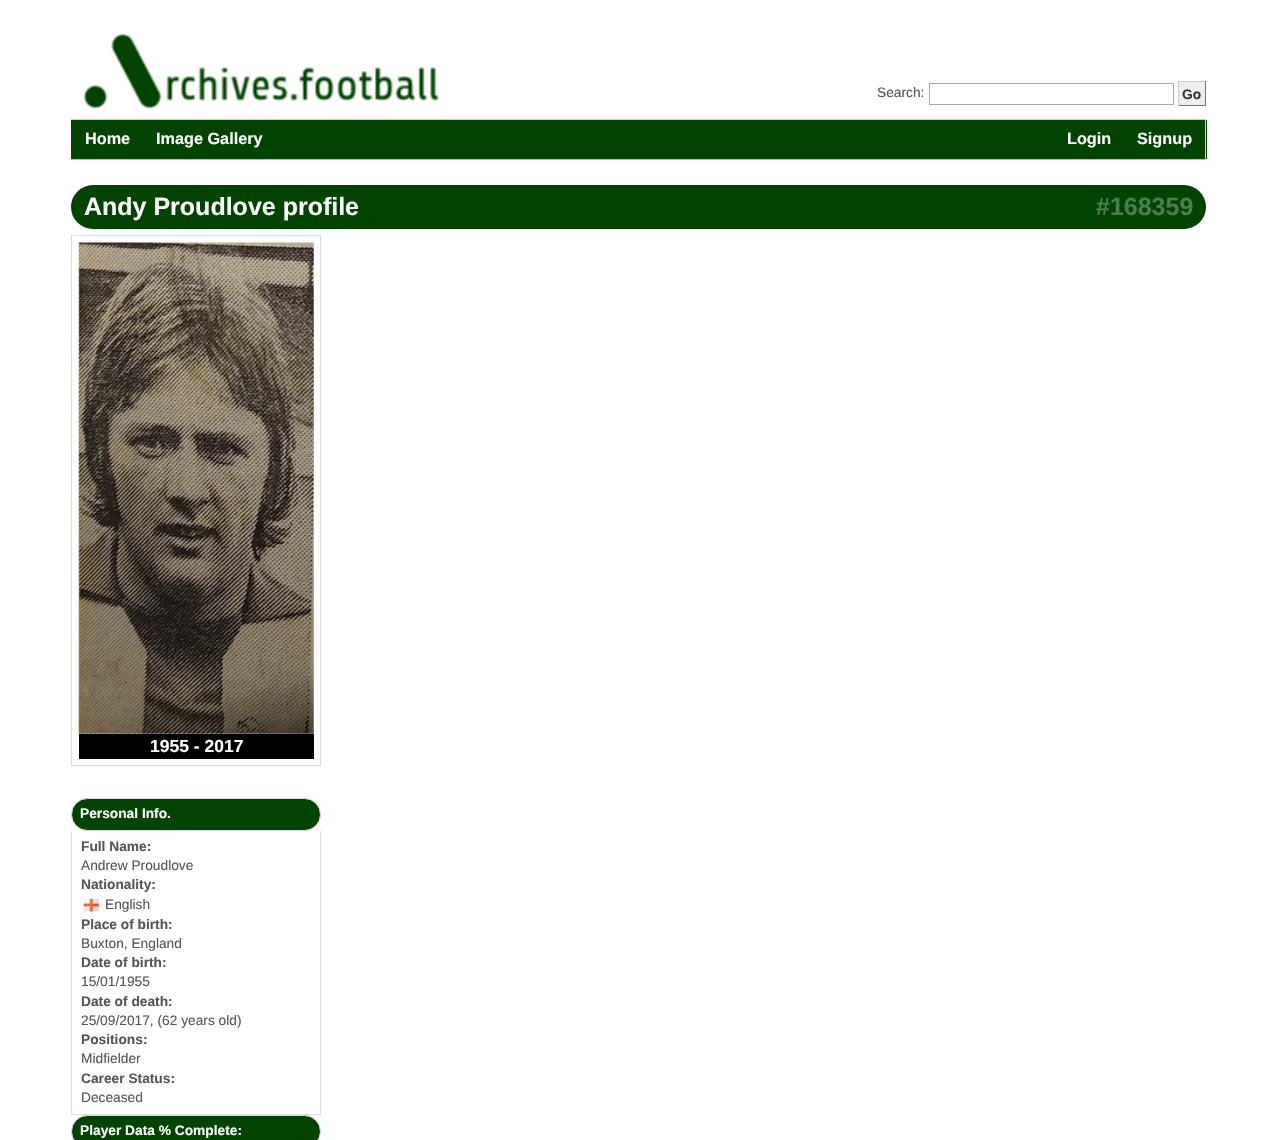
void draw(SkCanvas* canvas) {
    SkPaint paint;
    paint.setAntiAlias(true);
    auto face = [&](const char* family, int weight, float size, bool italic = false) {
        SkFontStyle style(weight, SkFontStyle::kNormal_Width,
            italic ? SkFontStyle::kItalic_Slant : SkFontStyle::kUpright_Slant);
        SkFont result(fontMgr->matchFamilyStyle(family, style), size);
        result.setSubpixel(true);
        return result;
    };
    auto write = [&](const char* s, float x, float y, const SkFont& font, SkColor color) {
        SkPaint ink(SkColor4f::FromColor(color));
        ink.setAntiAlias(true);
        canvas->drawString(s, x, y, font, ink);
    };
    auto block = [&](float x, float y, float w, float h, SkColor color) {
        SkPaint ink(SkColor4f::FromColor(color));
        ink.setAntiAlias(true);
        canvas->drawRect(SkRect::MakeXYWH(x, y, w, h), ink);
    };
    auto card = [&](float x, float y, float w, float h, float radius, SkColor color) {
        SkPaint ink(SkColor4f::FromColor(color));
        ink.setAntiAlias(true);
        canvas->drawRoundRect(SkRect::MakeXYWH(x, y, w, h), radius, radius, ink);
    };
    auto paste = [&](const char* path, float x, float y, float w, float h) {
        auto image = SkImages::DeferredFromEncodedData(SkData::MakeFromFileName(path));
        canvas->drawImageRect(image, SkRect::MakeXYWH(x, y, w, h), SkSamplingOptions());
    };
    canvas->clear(SK_ColorWHITE);
    paste("pic1.png", 83, 33, 356, 76);
    auto kFont1 = face("Liberation Sans", 400, 13.75f);
    write("Search:", 877, 97, kFont1, SkColorSetRGB(85, 85, 85));
    paint.setStyle(SkPaint::kStroke_Style);
    paint.setStrokeWidth(1);
    paint.setColor(SkColorSetRGB(170, 170, 170));
    canvas->drawRect(SkRect::MakeXYWH(929.5f, 83.5f, 244, 21), paint);
    block(1179, 82, 26, 23, SkColorSetRGB(238, 238, 238));
    block(1178, 81, 28, 1, SkColorSetRGB(204, 204, 204));
    block(1205, 81, 1, 25, SkColorSetRGB(119, 119, 119));
    block(1178, 105, 28, 1, SkColorSetRGB(119, 119, 119));
    block(1178, 81, 1, 25, SkColorSetRGB(204, 204, 204));
    auto kFont2 = face("Liberation Sans", 700, 13.75f);
    write("Go", 1182, 99, kFont2, SkColorSetRGB(51, 51, 51));
    block(71, 120, 1136, 39, SkColorSetRGB(0, 68, 0));
    block(71, 119, 1135, 1, SkColorSetRGB(204, 204, 204));
    block(71, 159, 908, 1, SkColorSetRGB(187, 187, 187));
    auto kFont3 = face("Liberation Sans", 700, 16.25f);
    write("Home", 85, 144, kFont3, SK_ColorWHITE);
    write("Image Gallery", 156, 144, kFont3, SK_ColorWHITE);
    block(1205, 119, 1, 41, SkColorSetRGB(204, 204, 204));
    block(979, 159, 227, 1, SkColorSetRGB(187, 187, 187));
    write("Login", 1067, 144, kFont3, SK_ColorWHITE);
    write("Signup", 1137, 144, kFont3, SK_ColorWHITE);
    card(71, 185, 1135, 44, 22, SkColorSetRGB(0, 68, 0));
    auto kFont4 = face("Liberation Sans", 700, 25);
    write("Andy Proudlove profile", 84, 215, kFont4, SK_ColorWHITE);
    write("#168359", 1096, 215, kFont4, SkColorSetRGB(77, 124, 77));
    paint.setColor(SkColorSetRGB(221, 221, 221));
    canvas->drawRect(SkRect::MakeXYWH(71.5f, 235.5f, 249, 530), paint);
    paste("pic2.png", 78, 242, 236, 492);
    block(79, 734, 235, 25, SK_ColorBLACK);
    auto kFont5 = face("Liberation Sans", 700, 17.5f);
    write("1955 - 2017", 150, 752, kFont5, SK_ColorWHITE);
    paint.setStyle(SkPaint::kFill_Style);
    paint.setColor(SkColorSetRGB(0, 68, 0));
    canvas->drawRoundRect(SkRect::MakeXYWH(71.5f, 798.5f, 249, 32), 16, 16, paint);
    paint.setStyle(SkPaint::kStroke_Style);
    paint.setColor(SkColorSetRGB(221, 221, 221));
    canvas->drawRoundRect(SkRect::MakeXYWH(71.5f, 798.5f, 249, 32), 16, 16, paint);
    write("Personal Info.", 80, 818, kFont2, SK_ColorWHITE);
    block(320, 831, 1, 284, SkColorSetRGB(221, 221, 221));
    block(71, 1114, 250, 1, SkColorSetRGB(221, 221, 221));
    block(71, 831, 1, 284, SkColorSetRGB(221, 221, 221));
    write("Full Name:", 81, 851, kFont2, SkColorSetRGB(85, 85, 85));
    write("Andrew Proudlove", 81, 870, kFont1, SkColorSetRGB(85, 85, 85));
    write("Nationality:", 81, 889, kFont2, SkColorSetRGB(85, 85, 85));
    paste("pic3.png", 83, 898, 16, 14);
    write("English", 105, 909, kFont1, SkColorSetRGB(85, 85, 85));
    write("Place of birth:", 81, 929, kFont2, SkColorSetRGB(85, 85, 85));
    write("Buxton, England", 81, 948, kFont1, SkColorSetRGB(85, 85, 85));
    write("Date of birth:", 81, 967, kFont2, SkColorSetRGB(85, 85, 85));
    write("15/01/1955", 81, 986, kFont1, SkColorSetRGB(85, 85, 85));
    write("Date of death:", 81, 1006, kFont2, SkColorSetRGB(85, 85, 85));
    write("25/09/2017, (62 years old)", 81, 1025, kFont1, SkColorSetRGB(85, 85, 85));
    write("Positions:", 81, 1044, kFont2, SkColorSetRGB(85, 85, 85));
    write("Midfielder", 81, 1063, kFont1, SkColorSetRGB(85, 85, 85));
    write("Career Status:", 81, 1083, kFont2, SkColorSetRGB(85, 85, 85));
    write("Deceased", 81, 1102, kFont1, SkColorSetRGB(85, 85, 85));
    paint.setStyle(SkPaint::kFill_Style);
    paint.setColor(SkColorSetRGB(0, 68, 0));
    canvas->drawRoundRect(SkRect::MakeXYWH(71.5f, 1115.5f, 249, 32), 16, 16, paint);
    paint.setStyle(SkPaint::kStroke_Style);
    paint.setColor(SkColorSetRGB(221, 221, 221));
    canvas->drawRoundRect(SkRect::MakeXYWH(71.5f, 1115.5f, 249, 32), 16, 16, paint);
    write("Player Data % Complete:", 80, 1135, kFont2, SK_ColorWHITE);
}
